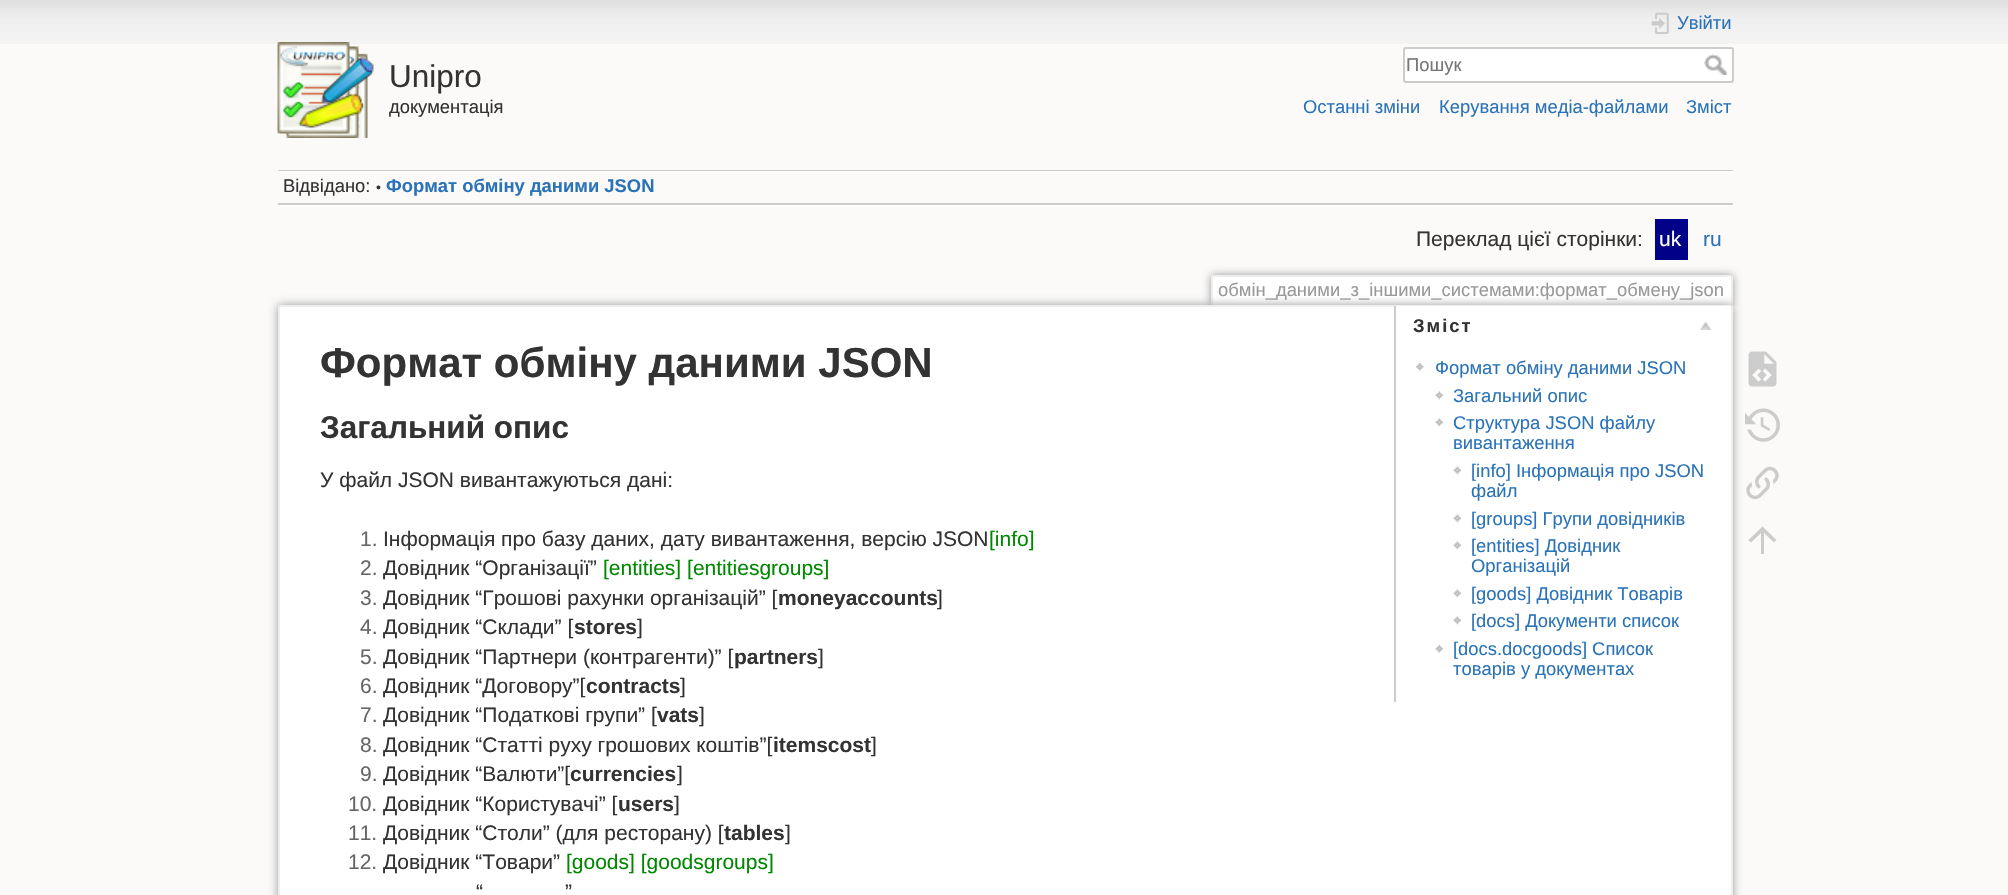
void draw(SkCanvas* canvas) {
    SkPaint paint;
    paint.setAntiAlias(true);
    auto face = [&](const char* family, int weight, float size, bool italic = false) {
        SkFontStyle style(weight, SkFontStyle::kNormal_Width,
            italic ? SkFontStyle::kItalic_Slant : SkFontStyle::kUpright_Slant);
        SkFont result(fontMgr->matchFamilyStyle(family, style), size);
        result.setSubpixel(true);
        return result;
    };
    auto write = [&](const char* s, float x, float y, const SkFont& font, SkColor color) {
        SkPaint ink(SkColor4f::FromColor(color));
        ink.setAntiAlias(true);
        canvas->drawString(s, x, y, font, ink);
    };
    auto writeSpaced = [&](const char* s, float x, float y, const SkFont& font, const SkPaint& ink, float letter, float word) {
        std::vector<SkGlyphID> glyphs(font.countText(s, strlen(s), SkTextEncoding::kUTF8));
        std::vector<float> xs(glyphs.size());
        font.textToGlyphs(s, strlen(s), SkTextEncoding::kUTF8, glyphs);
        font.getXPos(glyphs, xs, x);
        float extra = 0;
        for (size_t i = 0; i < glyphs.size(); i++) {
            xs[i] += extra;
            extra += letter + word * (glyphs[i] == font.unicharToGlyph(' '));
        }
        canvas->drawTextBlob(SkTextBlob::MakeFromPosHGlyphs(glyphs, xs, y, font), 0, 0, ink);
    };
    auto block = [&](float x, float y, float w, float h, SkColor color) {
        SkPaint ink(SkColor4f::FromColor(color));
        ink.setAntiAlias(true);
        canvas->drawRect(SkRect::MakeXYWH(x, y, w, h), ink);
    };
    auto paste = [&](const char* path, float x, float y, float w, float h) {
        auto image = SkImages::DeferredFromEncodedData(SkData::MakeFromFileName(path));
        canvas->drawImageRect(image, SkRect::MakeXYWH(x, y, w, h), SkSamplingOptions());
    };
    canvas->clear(SkColorSetRGB(251, 250, 249));
    paste("pic1.png", 0, 0, 2008, 44);
    paste("pic2.png", 277, 42, 97, 96);
    auto kFont1 = face("Liberation Sans", 400, 31.5f);
    write("Unipro", 389, 87, kFont1, SkColorSetRGB(51, 51, 51));
    auto kFont2 = face("Liberation Sans", 400, 18.4f);
    write("документація", 389, 113, kFont2, SkColorSetRGB(51, 51, 51));
    paste("pic3.png", 1651, 12, 18, 22);
    write("Увійти", 1677, 29, kFont2, SkColorSetRGB(43, 115, 183));
    paint.setColor(SK_ColorWHITE);
    canvas->drawRoundRect(SkRect::MakeXYWH(1404, 48, 329, 34), 2, 2, paint);
    paint.setStyle(SkPaint::kStroke_Style);
    paint.setStrokeWidth(2);
    paint.setColor(SkColorSetRGB(204, 204, 204));
    canvas->drawRoundRect(SkRect::MakeXYWH(1404, 48, 329, 34), 2, 2, paint);
    write("Пошук", 1406, 71, kFont2, SkColorSetRGB(117, 117, 117));
    paste("pic4.png", 1704, 54, 23, 21);
    write("Останні зміни", 1303, 113, kFont2, SkColorSetRGB(43, 115, 183));
    write("Керування медіа-файлами", 1439, 113, kFont2, SkColorSetRGB(43, 115, 183));
    write("Зміст", 1686, 113, kFont2, SkColorSetRGB(43, 115, 183));
    block(278, 170, 1455, 1, SkColorSetRGB(204, 204, 204));
    block(278, 205, 1455, 1, SK_ColorWHITE);
    block(278, 171, 1455, 2, SK_ColorWHITE);
    block(278, 203, 1455, 2, SkColorSetRGB(204, 204, 204));
    write("Відвідано:", 283, 192, kFont2, SkColorSetRGB(51, 51, 51));
    auto kFont3 = face("Liberation Sans", 400, 14);
    write("•", 376, 192, kFont3, SkColorSetRGB(51, 51, 51));
    auto kFont4 = face("Liberation Sans", 700, 18.4f);
    write("Формат обміну даними JSON", 386, 192, kFont4, SkColorSetRGB(43, 115, 183));
    auto kFont5 = face("Liberation Sans", 400, 21);
    write("Переклад цієї сторінки:", 1416, 246, kFont5, SkColorSetRGB(51, 51, 51));
    block(1655, 219, 33, 41, SkColorSetRGB(0, 0, 136));
    write("uk", 1659, 246, kFont5, SK_ColorWHITE);
    write("ru", 1703, 246, kFont5, SkColorSetRGB(43, 115, 183));
    canvas->save();
    canvas->clipRect(SkRect::MakeXYWH(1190, 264, 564, 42));
    paint.setStyle(SkPaint::kFill_Style);
    paint.setColor(SkColorSetRGB(153, 153, 153));
    paint.setMaskFilter(SkMaskFilter::MakeBlur(kNormal_SkBlurStyle, 4.5f));
    canvas->drawRoundRect(SkRect::MakeXYWH(1211, 275, 522, 31), 3, 3, paint);
    paint.setMaskFilter(nullptr);
    canvas->restore();
    block(1213, 277, 518, 29, SK_ColorWHITE);
    block(1212, 275, 519, 2, SkColorSetRGB(238, 238, 238));
    block(1731, 276, 2, 30, SkColorSetRGB(238, 238, 238));
    block(1211, 276, 2, 30, SkColorSetRGB(238, 238, 238));
    write("обмін_даними_з_іншими_системами:формат_обмену_json", 1218, 296, kFont2, SkColorSetRGB(153, 153, 153));
    paint.setMaskFilter(SkMaskFilter::MakeBlur(kNormal_SkBlurStyle, 5));
    canvas->drawRoundRect(SkRect::MakeXYWH(278, 305, 1455, 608), 3, 3, paint);
    paint.setMaskFilter(nullptr);
    paint.setColor(SK_ColorWHITE);
    canvas->drawRoundRect(SkRect::MakeXYWH(279, 306, 1453, 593), 2, 2, paint);
    paint.setStyle(SkPaint::kStroke_Style);
    paint.setColor(SkColorSetRGB(238, 238, 238));
    canvas->drawRoundRect(SkRect::MakeXYWH(279, 306, 1453, 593), 2, 2, paint);
    auto kFont6 = face("Liberation Sans", 700, 42);
    write("Формат обміну даними JSON", 320, 377, kFont6, SkColorSetRGB(51, 51, 51));
    paint.setStyle(SkPaint::kFill_Style);
    paint.setColor(SK_ColorWHITE);
    canvas->drawPath(SkPathBuilder().moveTo(1394, 306).lineTo(1729.5f, 306).cubicTo(1730.5f, 306, 1731, 306.5f, 1731, 307.5f).lineTo(1731, 702).lineTo(1394, 702).close().detach(), paint);
    block(1394, 306, 2, 396, SkColorSetRGB(204, 204, 204));
    paint.setColor(SkColorSetRGB(51, 51, 51));
    writeSpaced("Зміст", 1413, 332, kFont4, paint, 2, 0);
    paste("pic5.png", 1700, 322, 12, 8);
    paste("pic6.png", 1416, 363, 8, 8);
    write("Формат обміну даними JSON", 1435, 374, kFont2, SkColorSetRGB(43, 115, 183));
    paste("pic7.png", 1435, 391, 8, 9);
    write("Загальний опис", 1453, 402, kFont2, SkColorSetRGB(43, 115, 183));
    paste("pic7.png", 1435, 418, 8, 9);
    write("Структура JSON файлу", 1453, 429, kFont2, SkColorSetRGB(43, 115, 183));
    write("вивантаження", 1453, 449, kFont2, SkColorSetRGB(43, 115, 183));
    paste("pic7.png", 1453, 466, 8, 9);
    write("[info] Інформація про JSON", 1471, 477, kFont2, SkColorSetRGB(43, 115, 183));
    write("файл", 1471, 497, kFont2, SkColorSetRGB(43, 115, 183));
    paste("pic7.png", 1453, 514, 8, 9);
    write("[groups] Групи довідників", 1471, 525, kFont2, SkColorSetRGB(43, 115, 183));
    paste("pic7.png", 1453, 541, 8, 9);
    write("[entities] Довідник", 1471, 552, kFont2, SkColorSetRGB(43, 115, 183));
    write("Організацій", 1471, 572, kFont2, SkColorSetRGB(43, 115, 183));
    paste("pic7.png", 1453, 589, 8, 9);
    write("[goods] Довідник Товарів", 1471, 600, kFont2, SkColorSetRGB(43, 115, 183));
    paste("pic7.png", 1453, 616, 8, 9);
    write("[docs] Документи список", 1471, 627, kFont2, SkColorSetRGB(43, 115, 183));
    paste("pic8.png", 1435, 645, 8, 8);
    write("[docs.docgoods] Список", 1453, 655, kFont2, SkColorSetRGB(43, 115, 183));
    write("товарів у документах", 1453, 675, kFont2, SkColorSetRGB(43, 115, 183));
    auto kFont7 = face("Liberation Sans", 700, 31.5f);
    write("Загальний опис", 320, 438, kFont7, SkColorSetRGB(51, 51, 51));
    write("У файл JSON вивантажуються дані:", 320, 487, kFont5, SkColorSetRGB(51, 51, 51));
    write("1.", 360, 546, kFont5, SkColorSetRGB(102, 102, 102));
    write("Інформація про базу даних, дату вивантаження, версію JSON", 383, 546, kFont5, SkColorSetRGB(51, 51, 51));
    write("[info]", 989, 546, kFont5, SkColorSetRGB(0, 136, 0));
    write("2.", 360, 575, kFont5, SkColorSetRGB(102, 102, 102));
    write("Довідник “Організації”", 383, 575, kFont5, SkColorSetRGB(51, 51, 51));
    write("[entities] [entitiesgroups]", 603, 575, kFont5, SkColorSetRGB(0, 136, 0));
    write("3.", 360, 605, kFont5, SkColorSetRGB(102, 102, 102));
    write("Довідник “Грошові рахунки організацій” [", 383, 605, kFont5, SkColorSetRGB(51, 51, 51));
    auto kFont8 = face("Liberation Sans", 700, 21);
    write("moneyaccounts", 778, 605, kFont8, SkColorSetRGB(51, 51, 51));
    write("]", 937, 605, kFont5, SkColorSetRGB(51, 51, 51));
    write("4.", 360, 634, kFont5, SkColorSetRGB(102, 102, 102));
    write("Довідник “Склади” [", 383, 634, kFont5, SkColorSetRGB(51, 51, 51));
    write("stores", 574, 634, kFont8, SkColorSetRGB(51, 51, 51));
    write("]", 637, 634, kFont5, SkColorSetRGB(51, 51, 51));
    write("5.", 360, 664, kFont5, SkColorSetRGB(102, 102, 102));
    write("Довідник “Партнери (контрагенти)” [", 383, 664, kFont5, SkColorSetRGB(51, 51, 51));
    write("partners", 734, 664, kFont8, SkColorSetRGB(51, 51, 51));
    write("]", 818, 664, kFont5, SkColorSetRGB(51, 51, 51));
    write("6.", 360, 693, kFont5, SkColorSetRGB(102, 102, 102));
    write("Довідник “Договору”[", 383, 693, kFont5, SkColorSetRGB(51, 51, 51));
    write("contracts", 586, 693, kFont8, SkColorSetRGB(51, 51, 51));
    write("]", 680, 693, kFont5, SkColorSetRGB(51, 51, 51));
    write("7.", 360, 722, kFont5, SkColorSetRGB(102, 102, 102));
    write("Довідник “Податкові групи” [", 383, 722, kFont5, SkColorSetRGB(51, 51, 51));
    write("vats", 657, 722, kFont8, SkColorSetRGB(51, 51, 51));
    write("]", 699, 722, kFont5, SkColorSetRGB(51, 51, 51));
    write("8.", 360, 752, kFont5, SkColorSetRGB(102, 102, 102));
    write("Довідник “Статті руху грошових коштів”[", 383, 752, kFont5, SkColorSetRGB(51, 51, 51));
    write("itemscost", 773, 752, kFont8, SkColorSetRGB(51, 51, 51));
    write("]", 871, 752, kFont5, SkColorSetRGB(51, 51, 51));
    write("9.", 360, 781, kFont5, SkColorSetRGB(102, 102, 102));
    write("Довідник “Валюти”[", 383, 781, kFont5, SkColorSetRGB(51, 51, 51));
    write("currencies", 570, 781, kFont8, SkColorSetRGB(51, 51, 51));
    write("]", 677, 781, kFont5, SkColorSetRGB(51, 51, 51));
    write("10.", 348, 811, kFont5, SkColorSetRGB(102, 102, 102));
    write("Довідник “Користувачі” [", 383, 811, kFont5, SkColorSetRGB(51, 51, 51));
    write("users", 618, 811, kFont8, SkColorSetRGB(51, 51, 51));
    write("]", 674, 811, kFont5, SkColorSetRGB(51, 51, 51));
    write("11.", 348, 840, kFont5, SkColorSetRGB(102, 102, 102));
    write("Довідник “Столи” (для ресторану) [", 383, 840, kFont5, SkColorSetRGB(51, 51, 51));
    write("tables", 724, 840, kFont8, SkColorSetRGB(51, 51, 51));
    write("]", 785, 840, kFont5, SkColorSetRGB(51, 51, 51));
    write("12.", 348, 869, kFont5, SkColorSetRGB(102, 102, 102));
    write("Довідник “Товари”", 383, 869, kFont5, SkColorSetRGB(51, 51, 51));
    write("[goods] [goodsgroups]", 566, 869, kFont5, SkColorSetRGB(0, 136, 0));
    write("“", 476, 899, kFont5, SkColorSetRGB(51, 51, 51));
    write("”", 565, 899, kFont5, SkColorSetRGB(51, 51, 51));
    paste("pic9.png", 1748, 351, 29, 36);
    paste("pic10.png", 1745, 408, 35, 34);
    paste("pic11.png", 1746, 466, 33, 34);
    paint.setColor(SkColorSetRGB(204, 204, 204));
    canvas->drawPath(SkPathBuilder().moveTo(1764, 554).lineTo(1761, 554).lineTo(1761, 533).lineTo(1751, 542.5f).lineTo(1748.5f, 540).lineTo(1762.5f, 526.5f).lineTo(1776.5f, 540).lineTo(1774, 542.5f).lineTo(1764, 533).close().detach(), paint);
}
